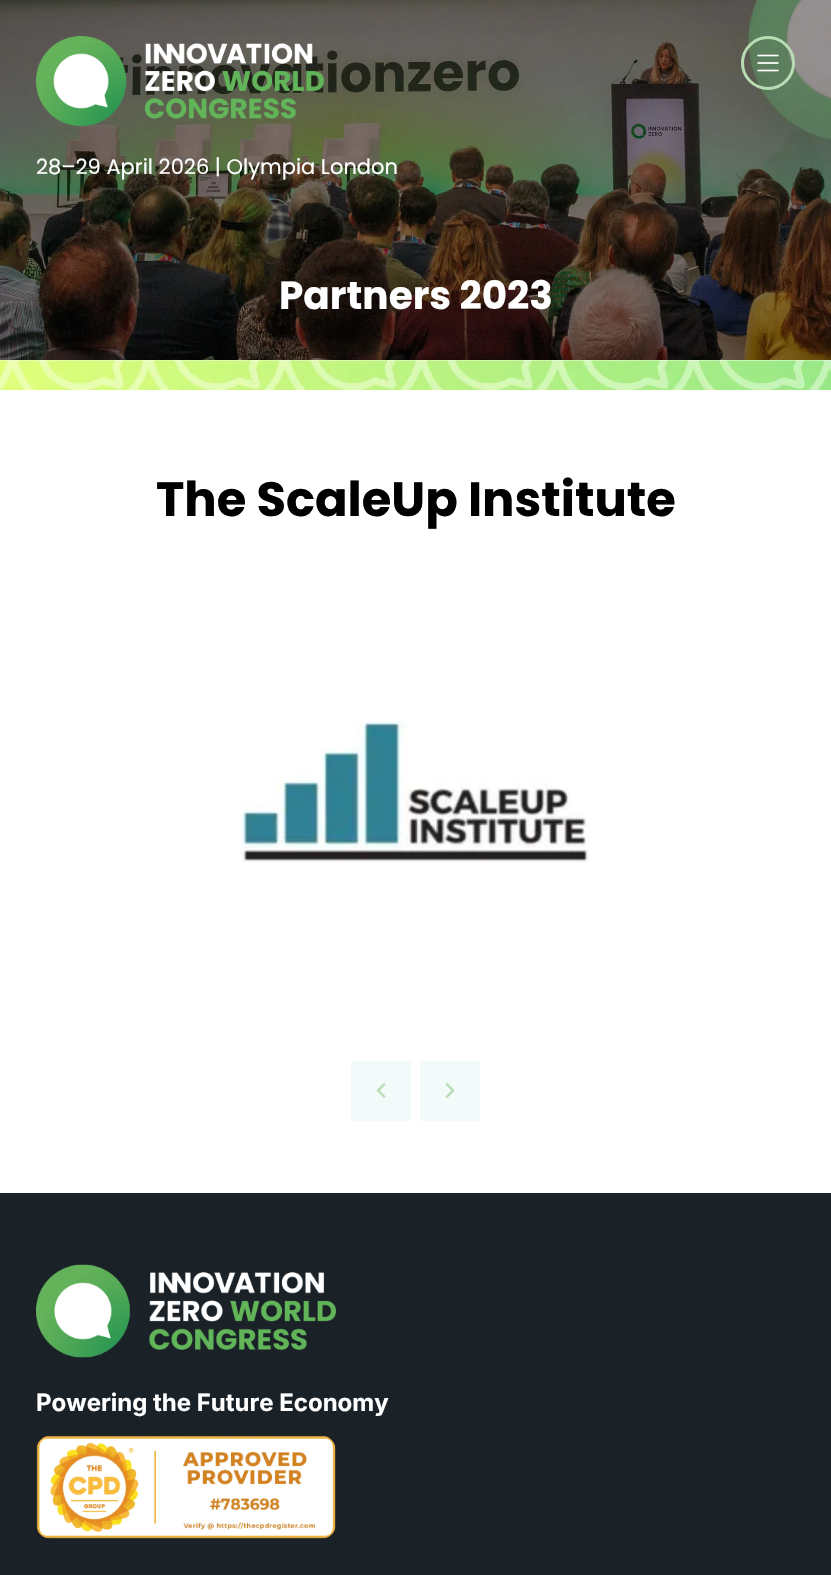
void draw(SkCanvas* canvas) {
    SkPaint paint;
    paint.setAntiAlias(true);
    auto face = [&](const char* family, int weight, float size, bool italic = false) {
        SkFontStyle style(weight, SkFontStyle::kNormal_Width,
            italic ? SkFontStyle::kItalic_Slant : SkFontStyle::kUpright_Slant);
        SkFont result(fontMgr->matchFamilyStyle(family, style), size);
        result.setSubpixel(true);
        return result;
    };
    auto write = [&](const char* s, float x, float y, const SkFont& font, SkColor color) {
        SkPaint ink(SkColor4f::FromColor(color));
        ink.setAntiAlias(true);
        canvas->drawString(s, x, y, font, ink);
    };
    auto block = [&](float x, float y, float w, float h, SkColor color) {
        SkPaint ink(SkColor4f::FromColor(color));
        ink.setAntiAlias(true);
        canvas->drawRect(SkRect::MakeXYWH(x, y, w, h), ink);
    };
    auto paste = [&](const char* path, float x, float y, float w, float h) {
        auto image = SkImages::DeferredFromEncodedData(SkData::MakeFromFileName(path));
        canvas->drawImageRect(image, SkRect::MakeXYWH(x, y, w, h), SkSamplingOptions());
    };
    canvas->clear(SK_ColorWHITE);
    paste("pic3.png", 0, 0, 831, 360);
    paint.setStyle(SkPaint::kStroke_Style);
    paint.setStrokeWidth(3);
    paint.setColor(SkColorSetRGB(184, 221, 180));
    canvas->drawCircle(768, 63, 25.5f, paint);
    paste("pic1.png", 757, 54, 22, 18);
    paste("pic2.png", 36, 36, 288, 90);
    auto kFont1 = face("Poppins", 400, 21);
    write("28–29 April 2026 | Olympia London", 36, 174, kFont1, SK_ColorWHITE);
    auto kFont2 = face("Poppins", 700, 39);
    write("Partners 2023", 279, 309, kFont2, SK_ColorWHITE);
    paste("pic4.png", 0, 360, 831, 30);
    auto kFont3 = face("Poppins", 700, 48);
    write("The ScaleUp Institute", 156, 516, kFont3, SK_ColorBLACK);
    paste("pic5.png", 239, 721, 351, 141);
    block(351, 1061, 60, 60, SkColorSetRGB(242, 251, 250));
    paste("pic6.png", 376, 1083, 10, 15);
    block(420, 1061, 60, 60, SkColorSetRGB(242, 251, 250));
    paste("pic7.png", 445, 1083, 10, 15);
    block(0, 1193, 831, 382, SkColorSetRGB(26, 34, 40));
    paste("pic8.png", 36, 1264, 300, 94);
    auto kFont4 = face("Inter", 700, 24);
    write("Powering the Future Economy", 36, 1411, kFont4, SK_ColorWHITE);
    paste("pic9.png", 36, 1435, 300, 104);
}
